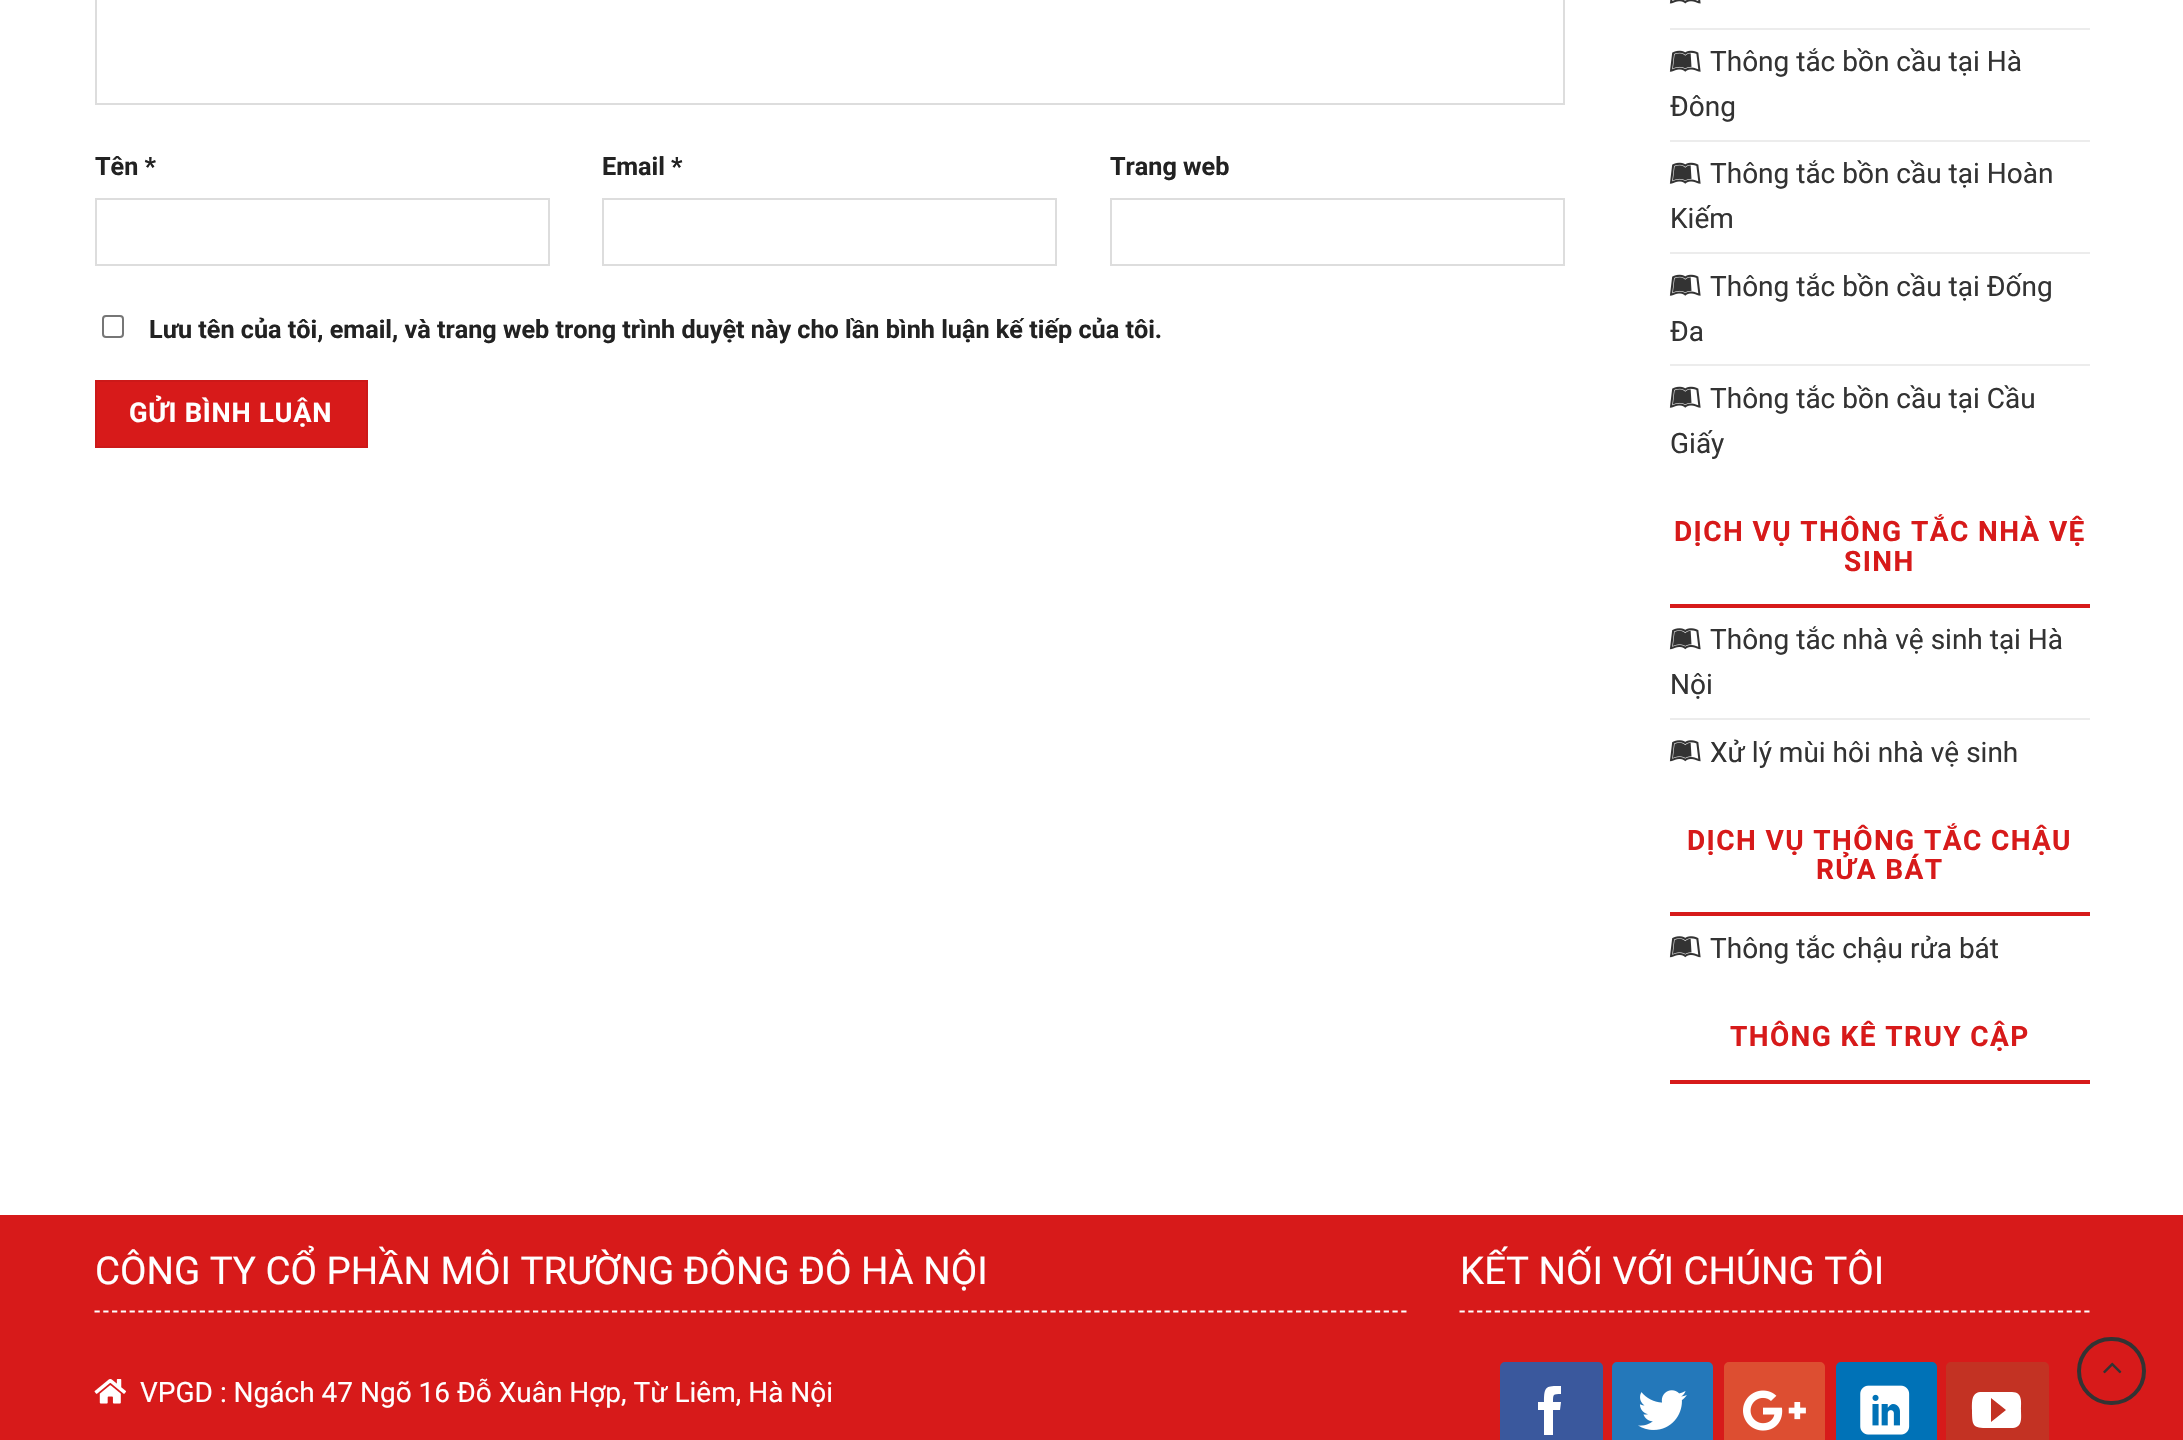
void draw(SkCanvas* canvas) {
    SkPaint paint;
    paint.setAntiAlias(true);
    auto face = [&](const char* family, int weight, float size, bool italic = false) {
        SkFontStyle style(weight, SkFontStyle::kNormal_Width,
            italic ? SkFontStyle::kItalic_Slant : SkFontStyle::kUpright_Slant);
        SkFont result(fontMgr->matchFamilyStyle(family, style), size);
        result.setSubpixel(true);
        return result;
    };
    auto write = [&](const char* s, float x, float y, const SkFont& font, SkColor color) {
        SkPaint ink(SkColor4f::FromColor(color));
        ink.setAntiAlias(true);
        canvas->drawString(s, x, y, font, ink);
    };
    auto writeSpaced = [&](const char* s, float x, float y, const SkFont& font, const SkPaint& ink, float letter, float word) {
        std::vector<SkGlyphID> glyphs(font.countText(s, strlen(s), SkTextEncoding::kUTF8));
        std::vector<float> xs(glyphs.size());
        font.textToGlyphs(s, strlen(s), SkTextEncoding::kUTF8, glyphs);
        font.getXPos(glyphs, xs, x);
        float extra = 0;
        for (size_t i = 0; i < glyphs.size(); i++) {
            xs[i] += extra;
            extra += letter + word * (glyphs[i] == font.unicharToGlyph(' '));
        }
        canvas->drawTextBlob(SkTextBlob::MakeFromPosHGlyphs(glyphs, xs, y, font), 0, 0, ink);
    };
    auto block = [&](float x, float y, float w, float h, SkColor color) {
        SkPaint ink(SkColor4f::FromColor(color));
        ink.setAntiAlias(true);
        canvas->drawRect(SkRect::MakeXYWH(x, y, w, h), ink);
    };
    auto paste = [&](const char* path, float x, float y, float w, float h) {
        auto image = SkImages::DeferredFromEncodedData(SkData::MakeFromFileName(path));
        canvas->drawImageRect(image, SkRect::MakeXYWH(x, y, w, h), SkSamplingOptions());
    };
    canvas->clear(SK_ColorWHITE);
    paint.setStyle(SkPaint::kStroke_Style);
    paint.setStrokeWidth(2);
    paint.setColor(SkColorSetRGB(221, 221, 221));
    canvas->drawRect(SkRect::MakeXYWH(96, -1, 1468, 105), paint);
    auto kFont1 = face("Roboto", 700, 25.2f);
    write("Tên *", 95, 175, kFont1, SkColorSetRGB(34, 34, 34));
    canvas->drawRect(SkRect::MakeXYWH(96, 199, 453, 66), paint);
    write("Email *", 602, 175, kFont1, SkColorSetRGB(34, 34, 34));
    canvas->drawRect(SkRect::MakeXYWH(603, 199, 453, 66), paint);
    write("Trang web", 1110, 175, kFont1, SkColorSetRGB(34, 34, 34));
    canvas->drawRect(SkRect::MakeXYWH(1111, 199, 453, 66), paint);
    paint.setColor(SkColorSetRGB(118, 118, 118));
    canvas->drawRoundRect(SkRect::MakeXYWH(103, 316, 20, 21), 3, 3, paint);
    write("Lưu tên của tôi, email, và trang web trong trình duyệt này cho lần bình luận kế tiếp của tôi.", 149, 338, kFont1, SkColorSetRGB(34, 34, 34));
    paint.setStyle(SkPaint::kFill_Style);
    paint.setColor(SkColorSetRGB(215, 26, 26));
    canvas->drawRect(SkRect::MakeXYWH(96, 381, 271, 66), paint);
    paint.setStyle(SkPaint::kStroke_Style);
    paint.setColor(SkColorSetRGB(204, 25, 25));
    canvas->drawRect(SkRect::MakeXYWH(96, 381, 271, 66), paint);
    auto kFont2 = face("Roboto", 700, 27.25f);
    paint.setStyle(SkPaint::kFill_Style);
    paint.setColor(SK_ColorWHITE);
    writeSpaced("GỬI BÌNH LUẬN", 129, 422, kFont2, paint, 0.75f, 0);
    paste("pic1.png", 1669, 0, 32, 4);
    block(1670, 28, 420, 2, SkColorSetRGB(236, 236, 236));
    paste("pic2.png", 1669, 50, 32, 22);
    auto kFont3 = face("Roboto", 400, 28);
    write("Thông tắc bồn cầu tại Hà", 1710, 71, kFont3, SkColorSetRGB(51, 51, 51));
    write("Đông", 1670, 116, kFont3, SkColorSetRGB(51, 51, 51));
    block(1670, 140, 420, 2, SkColorSetRGB(236, 236, 236));
    paste("pic2.png", 1669, 162, 32, 22);
    write("Thông tắc bồn cầu tại Hoàn", 1710, 183, kFont3, SkColorSetRGB(51, 51, 51));
    write("Kiếm", 1670, 228, kFont3, SkColorSetRGB(51, 51, 51));
    block(1670, 252, 420, 2, SkColorSetRGB(236, 236, 236));
    paste("pic2.png", 1669, 274, 32, 22);
    write("Thông tắc bồn cầu tại Đống", 1710, 296, kFont3, SkColorSetRGB(51, 51, 51));
    write("Đa", 1670, 341, kFont3, SkColorSetRGB(51, 51, 51));
    block(1670, 364, 420, 2, SkColorSetRGB(236, 236, 236));
    paste("pic2.png", 1669, 386, 32, 22);
    write("Thông tắc bồn cầu tại Cầu", 1710, 408, kFont3, SkColorSetRGB(51, 51, 51));
    write("Giấy", 1670, 453, kFont3, SkColorSetRGB(51, 51, 51));
    block(1670, 604, 420, 4, SkColorSetRGB(215, 26, 26));
    auto kFont4 = face("Roboto", 700, 28);
    paint.setColor(SkColorSetRGB(215, 26, 26));
    writeSpaced("DỊCH VỤ THÔNG TẮC NHÀ VỆ", 1674, 541, kFont4, paint, 1.4f, 0);
    writeSpaced("SINH", 1844, 571, kFont4, paint, 1.4f, 0);
    paste("pic3.png", 1669, 628, 32, 22);
    write("Thông tắc nhà vệ sinh tại Hà", 1710, 649, kFont3, SkColorSetRGB(51, 51, 51));
    write("Nội", 1670, 694, kFont3, SkColorSetRGB(51, 51, 51));
    block(1670, 718, 420, 2, SkColorSetRGB(236, 236, 236));
    paste("pic3.png", 1669, 740, 32, 22);
    write("Xử lý mùi hôi nhà vệ sinh", 1710, 762, kFont3, SkColorSetRGB(51, 51, 51));
    block(1670, 912, 420, 4, SkColorSetRGB(215, 26, 26));
    writeSpaced("DỊCH VỤ THÔNG TẮC CHẬU", 1687, 850, kFont4, paint, 1.4f, 0);
    writeSpaced("RỬA BÁT", 1816, 879, kFont4, paint, 1.4f, 0);
    paste("pic3.png", 1669, 936, 32, 22);
    write("Thông tắc chậu rửa bát", 1710, 958, kFont3, SkColorSetRGB(51, 51, 51));
    block(1670, 1080, 420, 4, SkColorSetRGB(215, 26, 26));
    writeSpaced("THÔNG KÊ TRUY CẬP", 1730, 1046, kFont4, paint, 1.4f, 0);
    block(0, 1215, 2183, 225, SkColorSetRGB(215, 26, 26));
    paint.setStyle(SkPaint::kStroke_Style);
    paint.setStrokeWidth(1.8f);
    paint.setColor(SK_ColorWHITE);
    paint.setPathEffect(SkDashPathEffect::Make({{5.25f, 3.52f}}, 0));
    canvas->drawPath(SkPathBuilder().moveTo(94.5f, 1311.5f).lineTo(1407, 1311.5f).detach(), paint);
    paint.setPathEffect(nullptr);
    auto kFont5 = face("Roboto", 400, 38.5f);
    write("CÔNG TY CỔ PHẦN MÔI TRƯỜNG ĐÔNG ĐÔ HÀ NỘI", 95, 1284, kFont5, SK_ColorWHITE);
    paste("pic4.png", 94, 1379, 32, 25);
    write("VPGD : Ngách 47 Ngõ 16 Đỗ Xuân Hợp, Từ Liêm, Hà Nội", 140, 1402, kFont3, SK_ColorWHITE);
    paint.setPathEffect(SkDashPathEffect::Make({{5.25f, 3.55f}}, 0));
    canvas->drawPath(SkPathBuilder().moveTo(1459.5f, 1311.5f).lineTo(2089.5f, 1311.5f).detach(), paint);
    paint.setPathEffect(nullptr);
    write("KẾT NỐI VỚI CHÚNG TÔI", 1460, 1284, kFont5, SK_ColorWHITE);
    paint.setStyle(SkPaint::kFill_Style);
    paint.setColor(SkColorSetRGB(58, 88, 157));
    canvas->drawRoundRect(SkRect::MakeXYWH(1501, 1363, 101, 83), 4, 4, paint);
    paint.setStyle(SkPaint::kStroke_Style);
    paint.setStrokeWidth(2);
    canvas->drawRoundRect(SkRect::MakeXYWH(1501, 1363, 101, 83), 4, 4, paint);
    paint.setStyle(SkPaint::kFill_Style);
    paint.setColor(SK_ColorWHITE);
    canvas->drawPath(SkPathBuilder().moveTo(1553, 1435).lineTo(1544, 1435).lineTo(1544, 1410).lineTo(1538, 1410).lineTo(1538, 1402).lineTo(1544, 1402).cubicTo(1544, 1386, 1546, 1386, 1561, 1386).lineTo(1561, 1394).cubicTo(1553, 1394, 1553, 1394, 1553, 1402).lineTo(1561, 1402).lineTo(1560, 1410).lineTo(1553, 1410).close().detach(), paint);
    paint.setColor(SkColorSetRGB(36, 120, 186));
    canvas->drawRoundRect(SkRect::MakeXYWH(1613, 1363, 99, 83), 4, 4, paint);
    paint.setStyle(SkPaint::kStroke_Style);
    canvas->drawRoundRect(SkRect::MakeXYWH(1613, 1363, 99, 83), 4, 4, paint);
    paste("pic5.png", 1638, 1390, 49, 40);
    paint.setStyle(SkPaint::kFill_Style);
    paint.setColor(SkColorSetRGB(221, 78, 49));
    canvas->drawRoundRect(SkRect::MakeXYWH(1725, 1363, 99, 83), 4, 4, paint);
    paint.setStyle(SkPaint::kStroke_Style);
    canvas->drawRoundRect(SkRect::MakeXYWH(1725, 1363, 99, 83), 4, 4, paint);
    paste("pic6.png", 1743, 1390, 63, 41);
    paint.setStyle(SkPaint::kFill_Style);
    paint.setColor(SkColorSetRGB(0, 114, 183));
    canvas->drawRoundRect(SkRect::MakeXYWH(1837, 1363, 99, 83), 4, 4, paint);
    paint.setStyle(SkPaint::kStroke_Style);
    canvas->drawRoundRect(SkRect::MakeXYWH(1837, 1363, 99, 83), 4, 4, paint);
    paste("pic7.png", 1860, 1385, 50, 50);
    paint.setStyle(SkPaint::kFill_Style);
    paint.setColor(SkColorSetRGB(195, 50, 35));
    canvas->drawRoundRect(SkRect::MakeXYWH(1947, 1363, 101, 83), 4, 4, paint);
    paint.setStyle(SkPaint::kStroke_Style);
    canvas->drawRoundRect(SkRect::MakeXYWH(1947, 1363, 101, 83), 4, 4, paint);
    paint.setStyle(SkPaint::kFill_Style);
    paint.setColor(SK_ColorWHITE);
    canvas->drawPath(SkPathBuilder().moveTo(2012, 1392).lineTo(1980, 1392).cubicTo(1971, 1393, 1972, 1403, 1972, 1410).cubicTo(1972, 1428, 1973, 1428, 1992, 1428).lineTo(2013, 1428).cubicTo(2023, 1427, 2021, 1417, 2021, 1410).cubicTo(2021, 1403, 2023, 1392, 2012, 1392).close().moveTo(1991, 1422).lineTo(1991, 1398).lineTo(2006, 1410).close().detach(), paint);
    paint.setStyle(SkPaint::kStroke_Style);
    paint.setStrokeWidth(4);
    paint.setColor(SkColorSetRGB(51, 51, 51));
    canvas->drawRoundRect(SkRect::MakeXYWH(2079, 1339, 65, 64), 32, 32, paint);
    paste("pic8.png", 2103, 1362, 19, 12);
}
